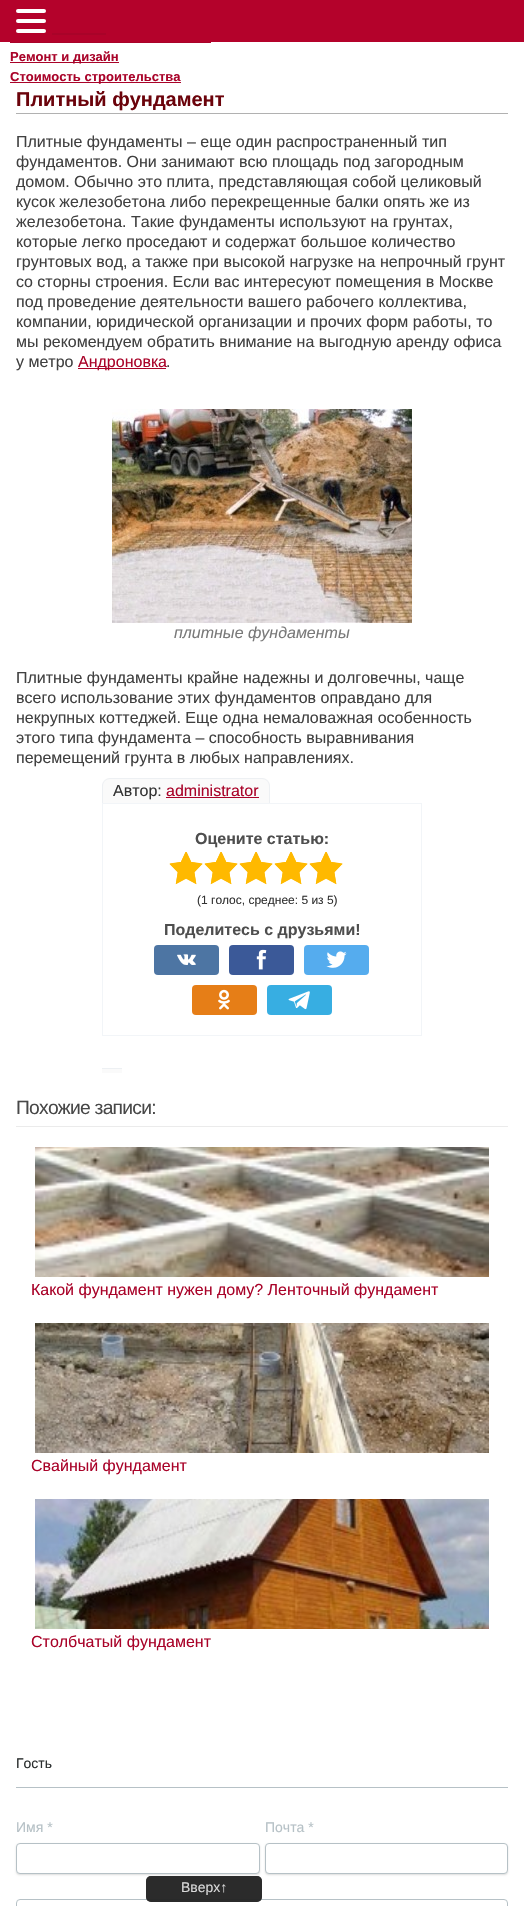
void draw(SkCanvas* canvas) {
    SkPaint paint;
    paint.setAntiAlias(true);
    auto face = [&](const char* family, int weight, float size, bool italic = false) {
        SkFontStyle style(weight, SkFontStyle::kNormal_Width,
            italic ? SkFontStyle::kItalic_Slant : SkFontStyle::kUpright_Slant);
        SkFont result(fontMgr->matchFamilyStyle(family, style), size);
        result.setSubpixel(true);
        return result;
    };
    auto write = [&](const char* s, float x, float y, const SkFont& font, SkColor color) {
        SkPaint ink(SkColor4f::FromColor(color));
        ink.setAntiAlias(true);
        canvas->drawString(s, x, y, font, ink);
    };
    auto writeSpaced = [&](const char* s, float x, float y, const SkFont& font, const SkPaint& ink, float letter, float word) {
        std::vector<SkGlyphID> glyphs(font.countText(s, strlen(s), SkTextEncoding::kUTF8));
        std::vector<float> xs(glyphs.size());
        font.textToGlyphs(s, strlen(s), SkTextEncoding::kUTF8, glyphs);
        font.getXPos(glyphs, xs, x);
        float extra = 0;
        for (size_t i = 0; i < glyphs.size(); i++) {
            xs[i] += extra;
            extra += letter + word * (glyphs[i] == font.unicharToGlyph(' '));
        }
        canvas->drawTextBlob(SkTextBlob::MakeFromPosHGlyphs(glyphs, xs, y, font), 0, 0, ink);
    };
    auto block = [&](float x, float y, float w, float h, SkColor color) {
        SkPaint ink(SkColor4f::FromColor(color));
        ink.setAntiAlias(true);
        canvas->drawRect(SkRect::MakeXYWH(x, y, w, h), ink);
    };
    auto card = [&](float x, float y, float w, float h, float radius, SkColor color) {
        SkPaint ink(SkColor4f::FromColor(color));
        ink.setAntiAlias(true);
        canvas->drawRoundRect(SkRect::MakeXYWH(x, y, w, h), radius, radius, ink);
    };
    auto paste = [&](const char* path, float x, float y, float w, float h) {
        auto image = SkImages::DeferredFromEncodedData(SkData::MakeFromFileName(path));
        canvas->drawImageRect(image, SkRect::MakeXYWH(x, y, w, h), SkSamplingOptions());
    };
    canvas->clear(SK_ColorWHITE);
    block(0, 0, 524, 42, SkColorSetRGB(180, 2, 43));
    card(16, 9, 30, 4, 2, SK_ColorWHITE);
    card(16, 19, 30, 4, 2, SK_ColorWHITE);
    card(16, 29, 30, 4, 2, SK_ColorWHITE);
    block(52, 33, 54, 2, SkColorSetRGB(169, 3, 41));
    block(10, 42, 201, 1, SkColorSetRGB(169, 3, 41));
    block(10, 62, 109, 1, SkColorSetRGB(169, 3, 41));
    auto kFont1 = face("Liberation Sans", 700, 13);
    write("Ремонт и дизайн", 10, 61, kFont1, SkColorSetRGB(169, 3, 41));
    block(10, 82, 171, 1, SkColorSetRGB(169, 3, 41));
    write("Стоимость строительства", 10, 81, kFont1, SkColorSetRGB(169, 3, 41));
    block(16, 113, 492, 1, SkColorSetRGB(177, 177, 177));
    auto kFont2 = face("Liberation Sans", 700, 20);
    write("Плитный фундамент", 16, 106, kFont2, SkColorSetRGB(107, 3, 11));
    auto kFont3 = face("Liberation Sans", 400, 16);
    write("Плитные фундаменты – еще один распространенный тип", 16, 147, kFont3, SkColorSetRGB(64, 64, 64));
    write("фундаментов. Они занимают всю площадь под загородным", 16, 167, kFont3, SkColorSetRGB(64, 64, 64));
    write("домом. Обычно это плита, представляющая собой целиковый", 16, 187, kFont3, SkColorSetRGB(64, 64, 64));
    write("кусок железобетона либо перекрещенные балки опять же из", 16, 207, kFont3, SkColorSetRGB(64, 64, 64));
    write("железобетона. Такие фундаменты используют на грунтах,", 16, 227, kFont3, SkColorSetRGB(64, 64, 64));
    write("которые легко проседают и содержат большое количество", 16, 247, kFont3, SkColorSetRGB(64, 64, 64));
    write("грунтовых вод, а также при высокой нагрузке на непрочный грунт", 16, 267, kFont3, SkColorSetRGB(64, 64, 64));
    write("со сторны строения. Если вас интересуют помещения в Москве", 16, 287, kFont3, SkColorSetRGB(64, 64, 64));
    write("под проведение деятельности вашего рабочего коллектива,", 16, 307, kFont3, SkColorSetRGB(64, 64, 64));
    write("компании, юридической организации и прочих форм работы, то", 16, 327, kFont3, SkColorSetRGB(64, 64, 64));
    write("мы рекомендуем обратить внимание на выгодную аренду офиса", 16, 347, kFont3, SkColorSetRGB(64, 64, 64));
    write("у метро", 16, 367, kFont3, SkColorSetRGB(64, 64, 64));
    block(78, 368, 88, 1, SkColorSetRGB(169, 3, 41));
    write("Андроновка", 78, 367, kFont3, SkColorSetRGB(169, 3, 41));
    write(".", 166, 367, kFont3, SkColorSetRGB(64, 64, 64));
    paste("pic1.png", 112, 409, 300, 214);
    auto kFont4 = face("Liberation Sans", 400, 16, true);
    write("плитные фундаменты", 174, 638, kFont4, SkColorSetRGB(121, 121, 121));
    write("Плитные фундаменты крайне надежны и долговечны, чаще", 16, 683, kFont3, SkColorSetRGB(64, 64, 64));
    write("всего использование этих фундаментов оправдано для", 16, 703, kFont3, SkColorSetRGB(64, 64, 64));
    write("некрупных коттеджей. Еще одна немаловажная особенность", 16, 723, kFont3, SkColorSetRGB(64, 64, 64));
    write("этого типа фундамента – способность выравнивания", 16, 743, kFont3, SkColorSetRGB(64, 64, 64));
    write("перемещений грунта в любых направлениях.", 16, 763, kFont3, SkColorSetRGB(64, 64, 64));
    paint.setColor(SkColorSetRGB(250, 250, 250));
    canvas->drawPath(SkPathBuilder().moveTo(110, 778).lineTo(262, 778).cubicTo(266.5f, 778, 270, 781.5f, 270, 786).lineTo(270, 803).lineTo(102, 803).lineTo(102, 786).cubicTo(102, 781.5f, 105.5f, 778, 110, 778).close().detach(), paint);
    paint.setColor(SkColorSetRGB(237, 240, 243));
    canvas->drawPath(SkPathBuilder(SkPathFillType::kEvenOdd).moveTo(110, 778).lineTo(262, 778).cubicTo(266, 778, 270, 782, 270, 786).lineTo(270, 803).lineTo(102, 803).lineTo(102, 786).cubicTo(102, 782, 106, 778, 110, 778).close().moveTo(110, 779).lineTo(262, 779).cubicTo(266, 779, 269, 782, 269, 786).lineTo(269, 803).lineTo(103, 803).lineTo(103, 786).cubicTo(103, 782, 106, 779, 110, 779).close().detach(), paint);
    write("Автор:", 113, 796, kFont3, SkColorSetRGB(51, 51, 51));
    write("administrator", 166, 796, kFont3, SkColorSetRGB(169, 3, 41));
    block(166, 797, 93, 1, SkColorSetRGB(169, 3, 41));
    block(102, 1069, 20, 4, SkColorSetRGB(250, 250, 250));
    block(102, 1068, 20, 1, SkColorSetRGB(237, 240, 243));
    paint.setStyle(SkPaint::kStroke_Style);
    paint.setStrokeWidth(1);
    paint.setColor(SkColorSetRGB(242, 245, 248));
    canvas->drawRect(SkRect::MakeXYWH(102.5f, 803.5f, 319, 232), paint);
    auto kFont5 = face("Liberation Sans", 700, 16);
    write("Оцените статью:", 195, 844, kFont5, SkColorSetRGB(78, 78, 78));
    paste("pic2.png", 169, 852, 174, 32);
    paste("pic3.png", 169, 852, 174, 33);
    auto kFont6 = face("Liberation Sans", 400, 12);
    write("(1 голос, среднее: 5 из 5)", 197, 904, kFont6, SkColorSetRGB(51, 51, 51));
    write("Поделитесь с друзьями!", 164, 935, kFont5, SkColorSetRGB(78, 78, 78));
    card(154, 945, 65, 30, 4, SkColorSetRGB(77, 117, 163));
    paste("pic4.png", 177, 954, 19, 11);
    card(229, 945, 65, 30, 4, SkColorSetRGB(59, 89, 152));
    paste("pic5.png", 256, 949, 11, 21);
    card(304, 945, 65, 30, 4, SkColorSetRGB(85, 172, 238));
    paste("pic6.png", 326, 951, 21, 17);
    card(192, 985, 65, 30, 4, SkColorSetRGB(230, 126, 23));
    paste("pic7.png", 218, 989, 12, 21);
    card(267, 985, 65, 30, 4, SkColorSetRGB(55, 174, 226));
    paste("pic8.png", 288, 991, 22, 19);
    auto kFont7 = face("Liberation Sans", 400, 19.25f);
    paint.setStyle(SkPaint::kFill_Style);
    paint.setColor(SkColorSetRGB(72, 72, 72));
    writeSpaced("Похожие записи:", 16, 1114, kFont7, paint, -0.75f, 0);
    block(16, 1126, 492, 1, SkColorSetRGB(235, 235, 235));
    paste("pic9.png", 35, 1147, 454, 130);
    write("Какой фундамент нужен дому? Ленточный фундамент", 31, 1295, kFont3, SkColorSetRGB(169, 3, 41));
    paste("pic10.png", 35, 1323, 454, 130);
    write("Свайный фундамент", 31, 1471, kFont3, SkColorSetRGB(169, 3, 41));
    paste("pic11.png", 35, 1499, 454, 130);
    write("Столбчатый фундамент", 31, 1647, kFont3, SkColorSetRGB(169, 3, 41));
    auto kFont8 = face("Liberation Sans", 400, 14);
    write("Гость", 16, 1768, kFont8, SkColorSetRGB(42, 46, 46));
    block(16, 1787, 492, 1, SkColorSetRGB(182, 193, 198));
    write("Имя *", 16, 1832, kFont8, SkColorSetRGB(182, 193, 198));
    paint.setColor(SkColorSetRGB(221, 221, 221));
    paint.setMaskFilter(SkMaskFilter::MakeBlur(kNormal_SkBlurStyle, 1));
    canvas->drawRoundRect(SkRect::MakeXYWH(16, 1844, 244, 31), 4, 4, paint);
    paint.setMaskFilter(nullptr);
    paint.setColor(SK_ColorWHITE);
    canvas->drawRoundRect(SkRect::MakeXYWH(16.5f, 1843.5f, 243, 30), 3.5f, 3.5f, paint);
    paint.setStyle(SkPaint::kStroke_Style);
    paint.setColor(SkColorSetRGB(182, 193, 198));
    canvas->drawRoundRect(SkRect::MakeXYWH(16.5f, 1843.5f, 243, 30), 3.5f, 3.5f, paint);
    write("Почта *", 265, 1832, kFont8, SkColorSetRGB(182, 193, 198));
    paint.setStyle(SkPaint::kFill_Style);
    paint.setColor(SkColorSetRGB(221, 221, 221));
    paint.setMaskFilter(SkMaskFilter::MakeBlur(kNormal_SkBlurStyle, 1));
    canvas->drawRoundRect(SkRect::MakeXYWH(265, 1844, 243, 31), 4, 4, paint);
    paint.setMaskFilter(nullptr);
    paint.setColor(SK_ColorWHITE);
    canvas->drawRoundRect(SkRect::MakeXYWH(265.5f, 1843.5f, 242, 30), 3.5f, 3.5f, paint);
    paint.setStyle(SkPaint::kStroke_Style);
    paint.setColor(SkColorSetRGB(182, 193, 198));
    canvas->drawRoundRect(SkRect::MakeXYWH(265.5f, 1843.5f, 242, 30), 3.5f, 3.5f, paint);
    canvas->drawRoundRect(SkRect::MakeXYWH(16.5f, 1899.5f, 491, 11), 3.5f, 3.5f, paint);
    card(146, 1876, 116, 26, 5, SkColorSetARGB(204, 34, 34, 34));
    card(146, 1876, 116, 26, 5, SkColorSetARGB(204, 34, 34, 34));
    write("Вверх↑", 181, 1892, kFont8, SkColorSetRGB(216, 216, 216));
}
